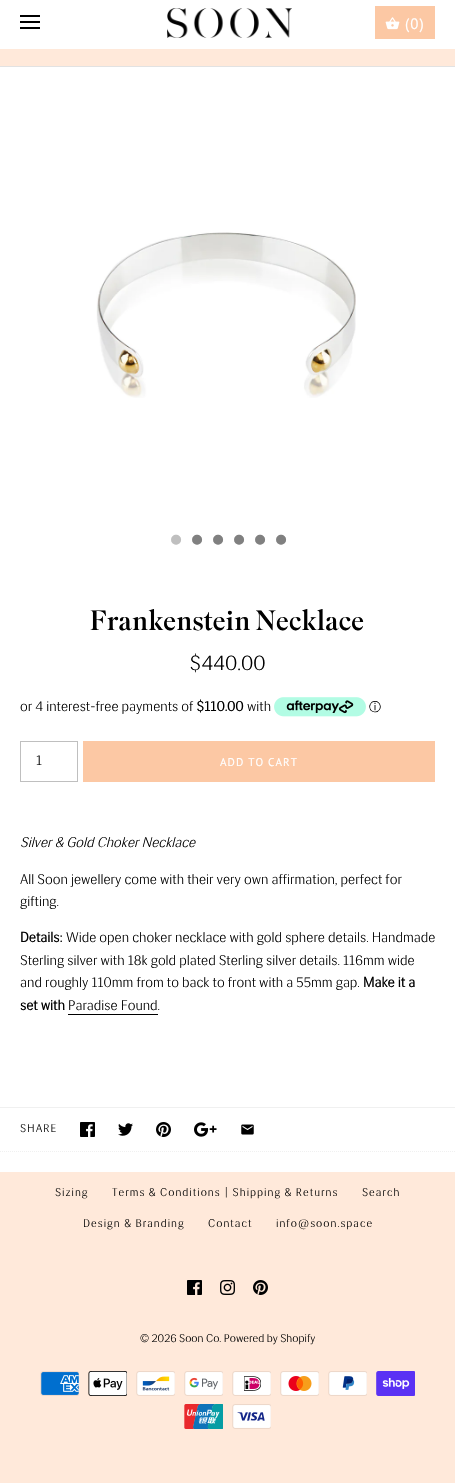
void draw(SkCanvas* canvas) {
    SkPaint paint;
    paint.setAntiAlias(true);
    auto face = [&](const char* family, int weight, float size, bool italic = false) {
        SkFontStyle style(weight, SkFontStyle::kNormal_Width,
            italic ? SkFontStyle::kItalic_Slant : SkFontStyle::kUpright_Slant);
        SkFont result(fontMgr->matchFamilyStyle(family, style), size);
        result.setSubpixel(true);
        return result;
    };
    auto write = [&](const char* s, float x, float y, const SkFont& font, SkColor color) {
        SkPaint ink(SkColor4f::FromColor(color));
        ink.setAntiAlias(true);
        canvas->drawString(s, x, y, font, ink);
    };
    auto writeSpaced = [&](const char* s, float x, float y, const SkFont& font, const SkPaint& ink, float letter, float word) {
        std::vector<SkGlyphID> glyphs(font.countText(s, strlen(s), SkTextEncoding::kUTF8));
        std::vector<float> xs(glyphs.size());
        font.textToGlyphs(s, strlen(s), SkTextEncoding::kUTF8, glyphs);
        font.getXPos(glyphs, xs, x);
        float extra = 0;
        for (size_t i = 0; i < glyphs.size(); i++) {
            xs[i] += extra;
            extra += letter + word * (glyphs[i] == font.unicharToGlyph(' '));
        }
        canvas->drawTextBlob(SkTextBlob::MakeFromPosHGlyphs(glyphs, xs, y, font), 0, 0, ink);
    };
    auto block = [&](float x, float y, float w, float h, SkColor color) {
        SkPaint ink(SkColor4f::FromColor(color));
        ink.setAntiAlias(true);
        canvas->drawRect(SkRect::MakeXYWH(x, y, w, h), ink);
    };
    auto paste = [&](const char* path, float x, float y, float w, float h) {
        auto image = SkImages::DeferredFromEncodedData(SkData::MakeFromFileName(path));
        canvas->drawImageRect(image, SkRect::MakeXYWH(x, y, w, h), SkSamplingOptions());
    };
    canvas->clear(SK_ColorWHITE);
    block(20, 15, 20, 2, SK_ColorBLACK);
    block(20, 21, 20, 2, SK_ColorBLACK);
    block(20, 27, 20, 2, SK_ColorBLACK);
    paste("pic1.png", 167, 8, 125, 30);
    block(375, 6, 60, 33, SkColorSetRGB(252, 200, 164));
    paste("pic2.png", 385, 17, 15, 13);
    auto kFont1 = face("PT Sans", 400, 15);
    paint.setColor(SK_ColorWHITE);
    writeSpaced("(0)", 405, 29, kFont1, paint, 1, 0);
    block(0, 49, 455, 17, SkColorSetRGB(255, 233, 218));
    block(0, 66, 455, 1, SkColorSetRGB(226, 226, 226));
    paste("pic3.png", 96, 232, 260, 166);
    auto kFont2 = face("Liberation Mono", 400, 37);
    paint.setColor(SkColorSetRGB(191, 191, 191));
    writeSpaced("•", 165, 552, kFont2, paint, 1, 0);
    paint.setColor(SkColorSetRGB(128, 128, 128));
    writeSpaced("•", 186, 552, kFont2, paint, 1, 0);
    writeSpaced("•", 207, 552, kFont2, paint, 1, 0);
    writeSpaced("•", 228, 552, kFont2, paint, 1, 0);
    writeSpaced("•", 249, 552, kFont2, paint, 1, 0);
    writeSpaced("•", 270, 552, kFont2, paint, 1, 0);
    auto kFont3 = face("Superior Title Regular", 400, 28);
    write("Frankenstein Necklace", 90, 630, kFont3, SK_ColorBLACK);
    auto kFont4 = face("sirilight", 400, 21);
    write("$440.00", 189, 670, kFont4, SK_ColorBLACK);
    auto kFont5 = face("sirilight", 400, 14);
    write("or 4 interest-free payments of", 20, 711, kFont5, SK_ColorBLACK);
    auto kFont6 = face("sirilight", 700, 14);
    write("$110.00", 196, 711, kFont6, SK_ColorBLACK);
    write("with", 247, 711, kFont5, SK_ColorBLACK);
    paste("pic4.png", 274, 697, 92, 20);
    auto kFont7 = face("WenQuanYi Zen Hei", 500, 12);
    write("ⓘ", 369, 711, kFont7, SK_ColorBLACK);
    paint.setStyle(SkPaint::kStroke_Style);
    paint.setStrokeWidth(1);
    paint.setColor(SkColorSetRGB(191, 191, 191));
    canvas->drawRect(SkRect::MakeXYWH(20.5f, 741.5f, 57, 40), paint);
    write("1", 36, 765, kFont5, SK_ColorBLACK);
    block(83, 741, 352, 41, SkColorSetRGB(252, 200, 164));
    auto kFont8 = face("PT Sans", 400, 11.2f);
    paint.setStyle(SkPaint::kFill_Style);
    paint.setColor(SK_ColorWHITE);
    writeSpaced("ADD TO CART", 220, 766, kFont8, paint, 1, 0);
    auto kFont9 = face("sirilight", 400, 14, true);
    write("Silver & Gold Choker Necklace", 20, 847, kFont9, SK_ColorBLACK);
    write("All Soon jewellery come with their very own affirmation, perfect for", 20, 884, kFont5, SK_ColorBLACK);
    write("gifting.", 20, 906, kFont5, SK_ColorBLACK);
    write("Details:", 20, 942, kFont6, SK_ColorBLACK);
    write("Wide open choker necklace with gold sphere details. Handmade", 66, 942, kFont5, SK_ColorBLACK);
    write("Sterling silver with 18k gold plated Sterling silver details. 116mm wide", 20, 965, kFont5, SK_ColorBLACK);
    write("and roughly 110mm from to back to front with a 55mm gap.", 20, 987, kFont5, SK_ColorBLACK);
    write("Make it a", 363, 987, kFont6, SK_ColorBLACK);
    write("set with", 20, 1010, kFont6, SK_ColorBLACK);
    write("Paradise Found.", 68, 1010, kFont5, SK_ColorBLACK);
    block(68, 1014, 90, 1, SK_ColorBLACK);
    block(0, 1107, 455, 1, SkColorSetRGB(240, 240, 240));
    paint.setStyle(SkPaint::kStroke_Style);
    paint.setColor(SkColorSetRGB(240, 240, 240));
    paint.setPathEffect(SkDashPathEffect::Make({{1, 1}}, 0));
    canvas->drawPath(SkPathBuilder().moveTo(0, 1151.5f).lineTo(455, 1151.5f).detach(), paint);
    paint.setPathEffect(nullptr);
    auto kFont10 = face("sirilight", 400, 11.2f);
    paint.setStyle(SkPaint::kFill_Style);
    paint.setColor(SK_ColorBLACK);
    writeSpaced("SHARE", 20, 1132, kFont10, paint, 1, 0);
    paste("pic5.png", 80, 1122, 15, 15);
    paste("pic6.png", 118, 1123, 15, 13);
    paste("pic7.png", 156, 1122, 15, 15);
    paste("pic8.png", 194, 1122, 23, 15);
    paste("pic9.png", 241, 1124, 13, 11);
    block(0, 1172, 455, 311, SkColorSetRGB(255, 233, 218));
    writeSpaced("Sizing", 55, 1196, kFont10, paint, 1, 0);
    writeSpaced("Terms & Conditions | Shipping & Returns", 112, 1196, kFont10, paint, 1, 0);
    writeSpaced("Search", 362, 1196, kFont10, paint, 1, 0);
    writeSpaced("Design & Branding", 83, 1227, kFont10, paint, 1, 0);
    writeSpaced("Contact", 208, 1227, kFont10, paint, 1, 0);
    writeSpaced("info@soon.space", 276, 1227, kFont10, paint, 1, 0);
    paste("pic10.png", 187, 1280, 15, 15);
    paste("pic11.png", 220, 1280, 15, 15);
    paste("pic12.png", 253, 1280, 15, 15);
    write("© 2026 Soon Co. Powered by Shopify", 140, 1342, kFont10, SK_ColorBLACK);
    paste("pic13.png", 40, 1371, 39, 25);
    paste("pic14.png", 88, 1371, 39, 25);
    paste("pic15.png", 136, 1371, 39, 25);
    paste("pic16.png", 184, 1371, 39, 25);
    paste("pic17.png", 232, 1371, 39, 25);
    paste("pic18.png", 280, 1371, 39, 25);
    paste("pic19.png", 328, 1371, 39, 25);
    paste("pic20.png", 376, 1371, 39, 25);
    paste("pic21.png", 184, 1404, 39, 25);
    paste("pic22.png", 232, 1404, 39, 25);
}
